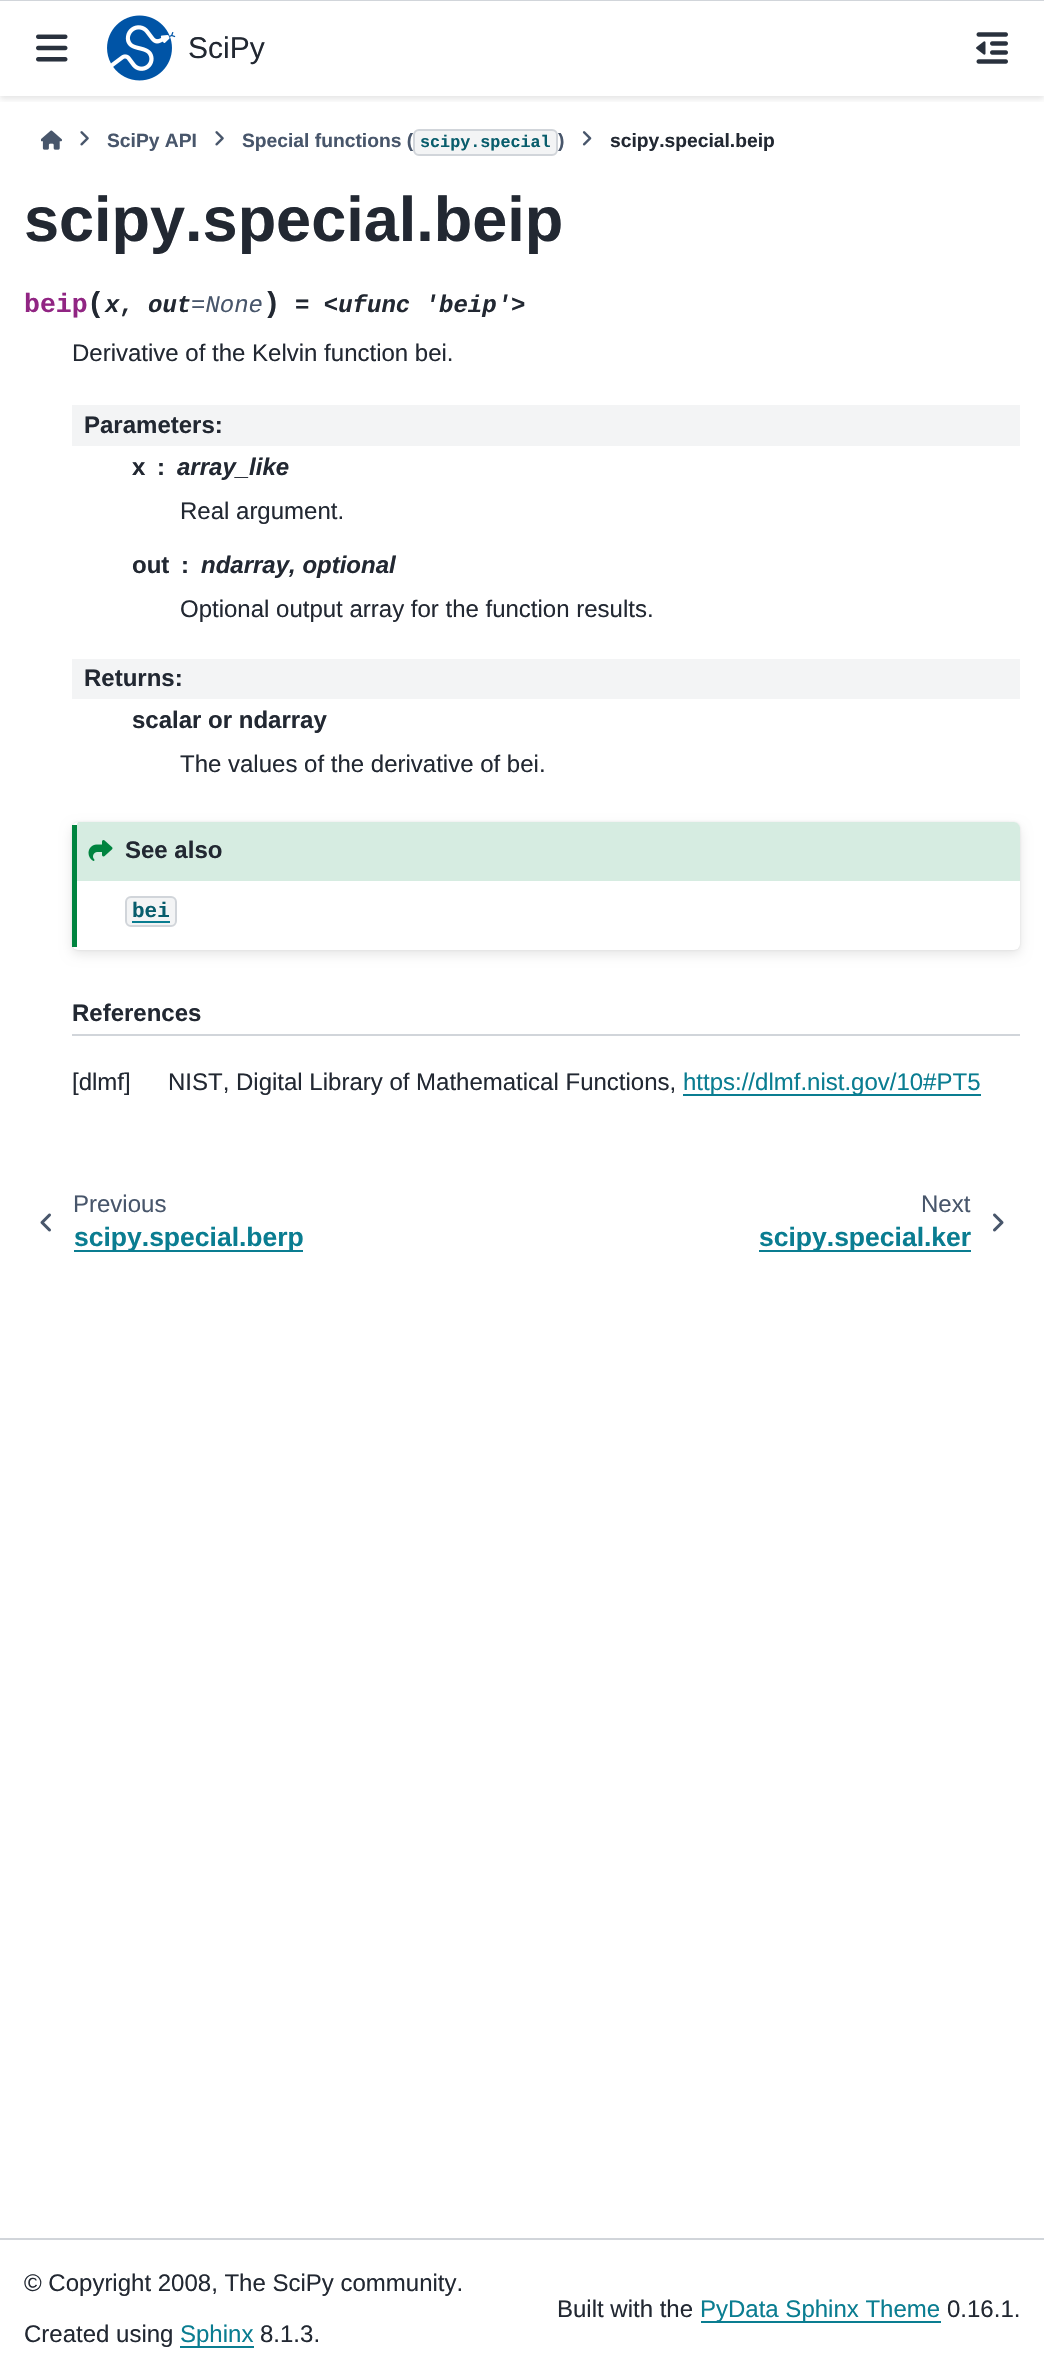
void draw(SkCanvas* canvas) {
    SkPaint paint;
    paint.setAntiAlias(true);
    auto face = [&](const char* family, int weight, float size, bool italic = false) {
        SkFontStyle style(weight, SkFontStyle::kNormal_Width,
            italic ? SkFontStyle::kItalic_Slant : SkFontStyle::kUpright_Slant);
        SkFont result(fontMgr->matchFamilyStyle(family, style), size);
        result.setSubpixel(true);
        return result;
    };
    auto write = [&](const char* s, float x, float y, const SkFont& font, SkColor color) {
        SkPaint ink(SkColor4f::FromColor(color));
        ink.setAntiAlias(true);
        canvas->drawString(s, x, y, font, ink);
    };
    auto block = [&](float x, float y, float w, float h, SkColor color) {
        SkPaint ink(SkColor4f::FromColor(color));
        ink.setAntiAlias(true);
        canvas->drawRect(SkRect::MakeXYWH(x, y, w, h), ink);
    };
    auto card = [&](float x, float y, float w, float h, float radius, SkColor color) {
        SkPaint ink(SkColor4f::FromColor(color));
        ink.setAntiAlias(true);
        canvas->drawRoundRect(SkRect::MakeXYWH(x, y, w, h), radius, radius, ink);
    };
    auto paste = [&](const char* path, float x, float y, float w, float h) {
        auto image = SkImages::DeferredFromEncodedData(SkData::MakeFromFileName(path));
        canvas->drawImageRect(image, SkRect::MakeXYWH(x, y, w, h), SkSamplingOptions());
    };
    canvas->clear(SK_ColorWHITE);
    canvas->save();
    canvas->clipRect(SkRect::MakeXYWH(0, 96, 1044, 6));
    paint.setColor(SkColorSetARGB(26, 0, 0, 0));
    paint.setMaskFilter(SkMaskFilter::MakeBlur(kNormal_SkBlurStyle, 3));
    canvas->drawRect(SkRect::MakeXYWH(0, 3, 1044, 96), paint);
    paint.setMaskFilter(nullptr);
    canvas->restore();
    block(0, 0, 1044, 1, SkColorSetRGB(209, 213, 218));
    paste("pic1.png", 36, 34, 32, 28);
    paste("pic2.png", 107, 15, 69, 66);
    auto kFont1 = face("Liberation Sans", 400, 30);
    write("SciPy", 188, 58, kFont1, SkColorSetRGB(34, 40, 50));
    paste("pic3.png", 976, 32, 32, 32);
    paste("pic4.png", 41, 130, 21, 20);
    paste("pic5.png", 80, 131, 9, 15);
    auto kFont2 = face("Liberation Sans", 700, 19.25f);
    write("SciPy API", 107, 147, kFont2, SkColorSetRGB(72, 86, 107));
    paste("pic5.png", 215, 131, 9, 15);
    write("Special functions (", 242, 147, kFont2, SkColorSetRGB(72, 86, 107));
    paint.setColor(SkColorSetRGB(243, 244, 245));
    canvas->drawRoundRect(SkRect::MakeXYWH(414, 130, 143, 25), 5, 5, paint);
    paint.setStyle(SkPaint::kStroke_Style);
    paint.setStrokeWidth(2);
    paint.setColor(SkColorSetRGB(209, 213, 218));
    canvas->drawRoundRect(SkRect::MakeXYWH(414, 130, 143, 25), 5, 5, paint);
    auto kFont3 = face("Liberation Mono", 700, 16.75f);
    write("scipy.special", 420, 147, kFont3, SkColorSetRGB(8, 93, 108));
    write(")", 558, 147, kFont2, SkColorSetRGB(72, 86, 107));
    paste("pic6.png", 582, 131, 10, 15);
    write("scipy.special.beip", 610, 147, kFont2, SkColorSetRGB(34, 40, 50));
    auto kFont4 = face("Liberation Sans", 700, 63);
    write("scipy.special.beip", 24, 241, kFont4, SkColorSetRGB(34, 40, 50));
    auto kFont5 = face("Liberation Mono", 700, 26.5f);
    write("beip", 24, 312, kFont5, SkColorSetRGB(145, 37, 131));
    auto kFont6 = face("Liberation Mono", 700, 29);
    write("(", 87, 312, kFont6, SkColorSetRGB(34, 40, 50));
    auto kFont7 = face("Liberation Mono", 700, 24, true);
    write("x", 105, 312, kFont7, SkColorSetRGB(34, 40, 50));
    auto kFont8 = face("Liberation Mono", 700, 24);
    write(",", 119, 312, kFont8, SkColorSetRGB(34, 40, 50));
    write("out", 148, 312, kFont7, SkColorSetRGB(34, 40, 50));
    auto kFont9 = face("Liberation Mono", 400, 24, true);
    write("=None", 191, 312, kFont9, SkColorSetRGB(72, 86, 107));
    write(")", 263, 312, kFont6, SkColorSetRGB(34, 40, 50));
    write("= <ufunc 'beip'>", 295, 312, kFont7, SkColorSetRGB(34, 40, 50));
    auto kFont10 = face("Liberation Sans", 400, 24);
    write("Derivative of the Kelvin function bei.", 72, 361, kFont10, SkColorSetRGB(34, 40, 50));
    block(72, 405, 948, 41, SkColorSetRGB(243, 244, 245));
    auto kFont11 = face("Liberation Sans", 700, 24);
    write("Parameters:", 84, 433, kFont11, SkColorSetRGB(34, 40, 50));
    write("x", 132, 475, kFont11, SkColorSetRGB(34, 40, 50));
    write(":", 157, 475, kFont11, SkColorSetRGB(34, 40, 50));
    auto kFont12 = face("Liberation Sans", 700, 24, true);
    write("array_like", 177, 475, kFont12, SkColorSetRGB(34, 40, 50));
    write("Real argument.", 180, 519, kFont10, SkColorSetRGB(34, 40, 50));
    write("out", 132, 573, kFont11, SkColorSetRGB(34, 40, 50));
    write(":", 181, 573, kFont11, SkColorSetRGB(34, 40, 50));
    write("ndarray, optional", 201, 573, kFont12, SkColorSetRGB(34, 40, 50));
    write("Optional output array for the function results.", 180, 617, kFont10, SkColorSetRGB(34, 40, 50));
    block(72, 659, 948, 40, SkColorSetRGB(243, 244, 245));
    write("Returns:", 84, 686, kFont11, SkColorSetRGB(34, 40, 50));
    write("scalar or ndarray", 132, 728, kFont11, SkColorSetRGB(34, 40, 50));
    write("The values of the derivative of bei.", 180, 772, kFont10, SkColorSetRGB(34, 40, 50));
    paint.setStyle(SkPaint::kFill_Style);
    paint.setColor(SkColorSetARGB(26, 0, 0, 0));
    paint.setMaskFilter(SkMaskFilter::MakeBlur(kNormal_SkBlurStyle, 1));
    canvas->drawRoundRect(SkRect::MakeXYWH(72, 822, 948, 128), 6, 6, paint);
    paint.setMaskFilter(nullptr);
    paint.setMaskFilter(SkMaskFilter::MakeBlur(kNormal_SkBlurStyle, 6));
    canvas->drawRoundRect(SkRect::MakeXYWH(72, 827, 948, 127), 6, 6, paint);
    paint.setMaskFilter(nullptr);
    card(72, 822, 948, 128, 6, SK_ColorWHITE);
    block(72, 825, 5, 122, SkColorSetRGB(0, 132, 63));
    paint.setColor(SkColorSetRGB(214, 236, 225));
    canvas->drawPath(SkPathBuilder().moveTo(78, 822).lineTo(77, 824).lineTo(77, 881).lineTo(1020, 881).lineTo(1020, 828).cubicTo(1020, 825, 1017, 822, 1014, 822).close().detach(), paint);
    paste("pic7.png", 88, 840, 25, 21);
    write("See also", 125, 858, kFont11, SkColorSetRGB(34, 40, 50));
    paint.setColor(SkColorSetRGB(243, 244, 245));
    canvas->drawRoundRect(SkRect::MakeXYWH(126, 897, 50, 29), 5, 5, paint);
    paint.setStyle(SkPaint::kStroke_Style);
    paint.setColor(SkColorSetRGB(209, 213, 218));
    canvas->drawRoundRect(SkRect::MakeXYWH(126, 897, 50, 29), 5, 5, paint);
    auto kFont13 = face("Liberation Mono", 700, 21);
    write("bei", 132, 917, kFont13, SkColorSetRGB(8, 93, 108));
    block(132, 921, 38, 2, SkColorSetRGB(10, 125, 145));
    block(72, 1034, 948, 2, SkColorSetRGB(209, 213, 218));
    write("References", 72, 1021, kFont11, SkColorSetRGB(34, 40, 50));
    write("[dlmf]", 72, 1090, kFont10, SkColorSetRGB(34, 40, 50));
    write("NIST, Digital Library of Mathematical Functions,", 168, 1090, kFont10, SkColorSetRGB(34, 40, 50));
    block(683, 1094, 298, 2, SkColorSetRGB(10, 125, 145));
    write("https://dlmf.nist.gov/10#PT5", 683, 1090, kFont10, SkColorSetRGB(10, 125, 145));
    paste("pic8.png", 40, 1213, 11, 19);
    write("Previous", 73, 1212, kFont10, SkColorSetRGB(72, 86, 107));
    block(74, 1250, 229, 2, SkColorSetRGB(10, 125, 145));
    auto kFont14 = face("Liberation Sans", 700, 26.5f);
    write("scipy.special.berp", 74, 1246, kFont14, SkColorSetRGB(10, 125, 145));
    write("Next", 921, 1212, kFont10, SkColorSetRGB(72, 86, 107));
    block(759, 1250, 212, 2, SkColorSetRGB(10, 125, 145));
    write("scipy.special.ker", 759, 1246, kFont14, SkColorSetRGB(10, 125, 145));
    paste("pic9.png", 993, 1213, 11, 19);
    block(0, 2238, 1044, 2, SkColorSetRGB(209, 213, 218));
    write("© Copyright 2008, The SciPy community.", 24, 2291, kFont10, SkColorSetRGB(34, 40, 50));
    write("Created using", 24, 2342, kFont10, SkColorSetRGB(34, 40, 50));
    block(180, 2346, 74, 2, SkColorSetRGB(10, 125, 145));
    write("Sphinx", 180, 2342, kFont10, SkColorSetRGB(10, 125, 145));
    write("8.1.3.", 260, 2342, kFont10, SkColorSetRGB(34, 40, 50));
    write("Built with the", 557, 2317, kFont10, SkColorSetRGB(34, 40, 50));
    block(701, 2321, 240, 2, SkColorSetRGB(10, 125, 145));
    write("PyData Sphinx Theme", 700, 2317, kFont10, SkColorSetRGB(10, 125, 145));
    write("0.16.1.", 947, 2317, kFont10, SkColorSetRGB(34, 40, 50));
}
